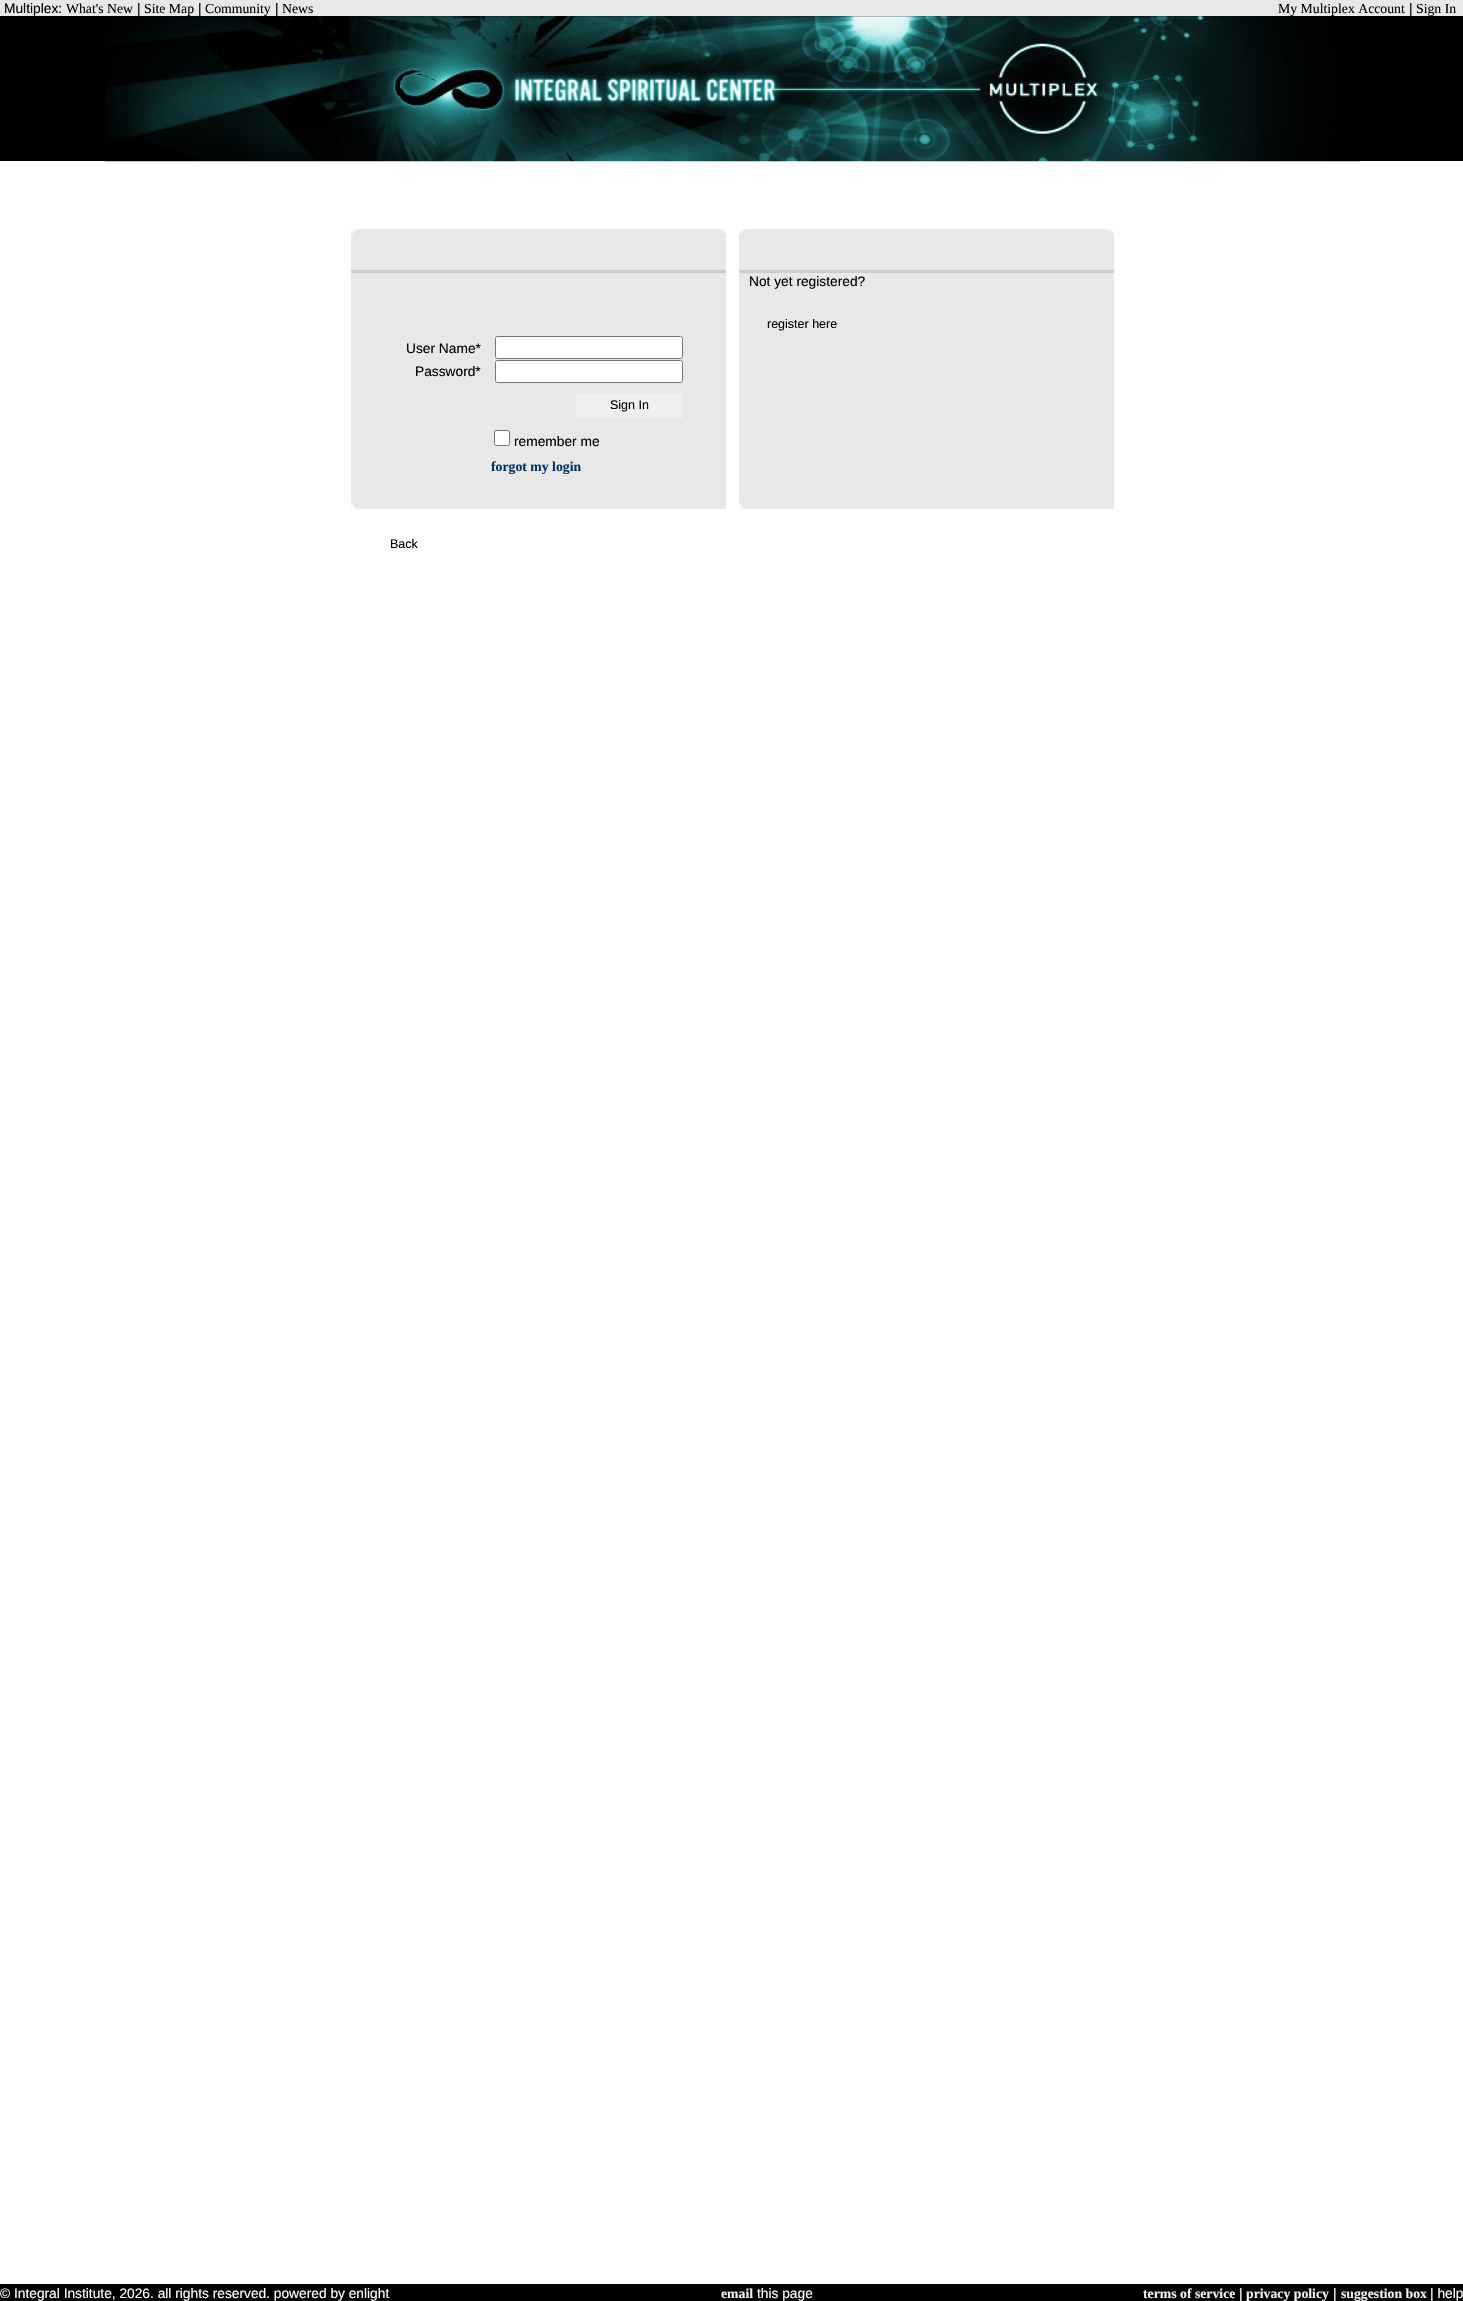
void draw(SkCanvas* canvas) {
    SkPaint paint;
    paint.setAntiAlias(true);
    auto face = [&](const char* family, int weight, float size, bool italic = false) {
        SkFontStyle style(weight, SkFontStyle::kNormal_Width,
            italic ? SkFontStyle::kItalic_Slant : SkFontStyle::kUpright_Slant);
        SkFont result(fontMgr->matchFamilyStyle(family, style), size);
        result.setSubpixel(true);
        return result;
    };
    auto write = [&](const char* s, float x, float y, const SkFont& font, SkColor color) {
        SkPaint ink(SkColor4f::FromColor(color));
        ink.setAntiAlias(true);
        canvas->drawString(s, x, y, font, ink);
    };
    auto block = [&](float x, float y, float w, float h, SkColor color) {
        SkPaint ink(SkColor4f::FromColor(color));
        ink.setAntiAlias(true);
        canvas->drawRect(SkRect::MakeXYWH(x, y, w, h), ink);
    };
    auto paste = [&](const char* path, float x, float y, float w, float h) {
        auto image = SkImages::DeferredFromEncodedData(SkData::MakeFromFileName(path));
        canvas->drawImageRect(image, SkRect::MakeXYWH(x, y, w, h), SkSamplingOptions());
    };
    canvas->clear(SK_ColorWHITE);
    block(0, 0, 1463, 16, SkColorSetRGB(232, 232, 232));
    auto kFont1 = face("Liberation Sans", 400, 13.75f);
    write("Multiplex:", 4, 13, kFont1, SK_ColorBLACK);
    auto kFont2 = face("Liberation Serif", 400, 13.75f);
    write("What's New", 66, 13, kFont2, SK_ColorBLACK);
    write("|", 137, 13, kFont1, SK_ColorBLACK);
    write("Site Map", 144, 13, kFont2, SK_ColorBLACK);
    write("|", 198, 13, kFont1, SK_ColorBLACK);
    write("Community", 205, 13, kFont2, SK_ColorBLACK);
    write("|", 275, 13, kFont1, SK_ColorBLACK);
    write("News", 282, 13, kFont2, SK_ColorBLACK);
    write("My Multiplex Account", 1278, 13, kFont2, SK_ColorBLACK);
    write("|", 1409, 13, kFont1, SK_ColorBLACK);
    write("Sign In", 1416, 13, kFont2, SK_ColorBLACK);
    block(0, 16, 1463, 145, SK_ColorBLACK);
    paste("pic1.png", 105, 16, 1255, 146);
    block(739, 238, 11, 32, SkColorSetRGB(232, 232, 232));
    paste("pic2.png", 738, 228, 12, 10);
    block(750, 229, 364, 10, SkColorSetRGB(232, 232, 232));
    paste("pic3.png", 1104, 228, 10, 7);
    block(750, 239, 364, 31, SkColorSetRGB(232, 232, 232));
    block(739, 270, 375, 3, SkColorSetRGB(204, 204, 204));
    block(739, 273, 375, 225, SkColorSetRGB(232, 232, 232));
    write("Not yet registered?", 749, 286, kFont1, SK_ColorBLACK);
    auto kFont3 = face("Liberation Sans", 400, 12.5f);
    write("register here", 767, 328, kFont3, SK_ColorBLACK);
    block(739, 498, 375, 11, SkColorSetRGB(232, 232, 232));
    paste("pic4.png", 738, 498, 7, 11);
    block(351, 229, 375, 10, SkColorSetRGB(232, 232, 232));
    paste("pic5.png", 351, 228, 11, 7);
    paste("pic6.png", 717, 228, 10, 10);
    block(351, 239, 375, 31, SkColorSetRGB(232, 232, 232));
    block(351, 270, 375, 3, SkColorSetRGB(204, 204, 204));
    block(351, 273, 375, 225, SkColorSetRGB(232, 232, 232));
    write("User Name*", 406, 353, kFont1, SK_ColorBLACK);
    paint.setColor(SK_ColorWHITE);
    canvas->drawRoundRect(SkRect::MakeXYWH(495.5f, 336.5f, 187, 22), 2, 2, paint);
    paint.setStyle(SkPaint::kStroke_Style);
    paint.setStrokeWidth(1);
    paint.setColor(SkColorSetRGB(118, 118, 118));
    canvas->drawRoundRect(SkRect::MakeXYWH(495.5f, 336.5f, 187, 22), 2, 2, paint);
    write("Password*", 415, 376, kFont1, SK_ColorBLACK);
    paint.setStyle(SkPaint::kFill_Style);
    paint.setColor(SK_ColorWHITE);
    canvas->drawRoundRect(SkRect::MakeXYWH(495.5f, 360.5f, 187, 22), 2, 2, paint);
    paint.setStyle(SkPaint::kStroke_Style);
    paint.setColor(SkColorSetRGB(118, 118, 118));
    canvas->drawRoundRect(SkRect::MakeXYWH(495.5f, 360.5f, 187, 22), 2, 2, paint);
    block(576, 393, 107, 25, SkColorSetRGB(239, 239, 239));
    write("Sign In", 610, 409, kFont3, SK_ColorBLACK);
    paint.setStyle(SkPaint::kFill_Style);
    paint.setColor(SK_ColorWHITE);
    canvas->drawRoundRect(SkRect::MakeXYWH(494.5f, 430.5f, 15, 15), 2, 2, paint);
    paint.setStyle(SkPaint::kStroke_Style);
    paint.setColor(SkColorSetRGB(118, 118, 118));
    canvas->drawRoundRect(SkRect::MakeXYWH(494.5f, 430.5f, 15, 15), 2, 2, paint);
    write("remember me", 514, 446, kFont1, SK_ColorBLACK);
    auto kFont4 = face("Liberation Serif", 700, 13.75f);
    write("forgot my login", 491, 471, kFont4, SkColorSetRGB(0, 51, 102));
    block(351, 498, 375, 11, SkColorSetRGB(232, 232, 232));
    paste("pic7.png", 351, 503, 7, 6);
    write("Back", 390, 548, kFont3, SK_ColorBLACK);
    block(0, 2284, 1463, 17, SK_ColorBLACK);
    write("© Integral Institute, 2026. all rights reserved. powered by enlight", 0, 2298, kFont1, SK_ColorWHITE);
    write("email", 721, 2298, kFont4, SkColorSetRGB(238, 238, 238));
    write("this page", 757, 2298, kFont1, SK_ColorWHITE);
    write("terms of service", 1143, 2298, kFont4, SkColorSetRGB(238, 238, 238));
    write("|", 1239, 2298, kFont1, SK_ColorWHITE);
    write("privacy policy", 1246, 2298, kFont4, SkColorSetRGB(238, 238, 238));
    write("|", 1333, 2298, kFont1, SK_ColorWHITE);
    write("suggestion box", 1341, 2298, kFont4, SkColorSetRGB(238, 238, 238));
    write("| help", 1430, 2298, kFont1, SK_ColorWHITE);
}
